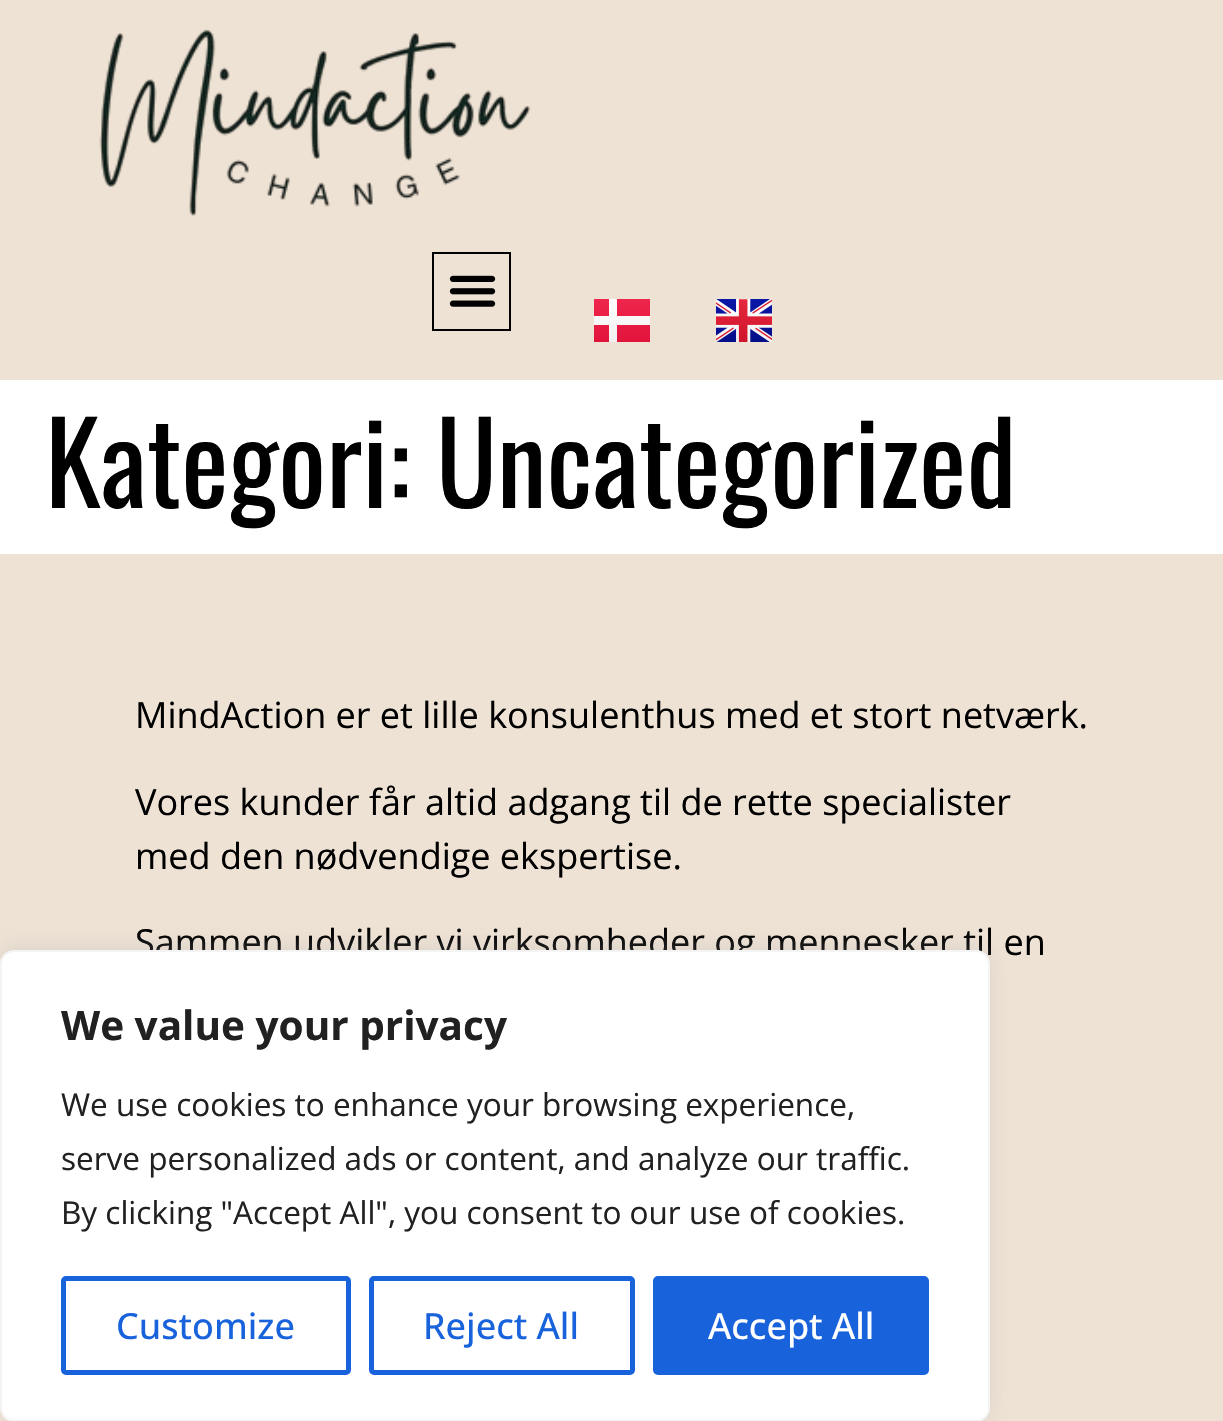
void draw(SkCanvas* canvas) {
    SkPaint paint;
    paint.setAntiAlias(true);
    auto face = [&](const char* family, int weight, float size, bool italic = false) {
        SkFontStyle style(weight, SkFontStyle::kNormal_Width,
            italic ? SkFontStyle::kItalic_Slant : SkFontStyle::kUpright_Slant);
        SkFont result(fontMgr->matchFamilyStyle(family, style), size);
        result.setSubpixel(true);
        return result;
    };
    auto write = [&](const char* s, float x, float y, const SkFont& font, SkColor color) {
        SkPaint ink(SkColor4f::FromColor(color));
        ink.setAntiAlias(true);
        canvas->drawString(s, x, y, font, ink);
    };
    auto block = [&](float x, float y, float w, float h, SkColor color) {
        SkPaint ink(SkColor4f::FromColor(color));
        ink.setAntiAlias(true);
        canvas->drawRect(SkRect::MakeXYWH(x, y, w, h), ink);
    };
    auto paste = [&](const char* path, float x, float y, float w, float h) {
        auto image = SkImages::DeferredFromEncodedData(SkData::MakeFromFileName(path));
        canvas->drawImageRect(image, SkRect::MakeXYWH(x, y, w, h), SkSamplingOptions());
    };
    canvas->clear(SK_ColorWHITE);
    block(0, 0, 1223, 380, SkColorSetRGB(238, 226, 212));
    paste("pic1.png", 99, 29, 432, 187);
    paint.setStyle(SkPaint::kStroke_Style);
    paint.setStrokeWidth(2);
    paint.setColor(SK_ColorBLACK);
    canvas->drawRect(SkRect::MakeXYWH(433, 253, 77, 77), paint);
    paste("pic2.png", 449, 275, 47, 32);
    paint.setStyle(SkPaint::kFill_Style);
    {
        const SkColor colors[] = {SkColorSetRGB(239, 38, 77), SkColorSetRGB(225, 20, 60)};
        const float stops[] = {0, 1};
        const SkPoint ends[] = {{622, 299}, {622, 342}};
        paint.setShader(SkGradientShader::MakeLinear(ends, colors, stops, 2, SkTileMode::kClamp));
        paint.setAlpha(255);
    }
    canvas->drawRect(SkRect::MakeXYWH(594, 299, 56, 43), paint);
    canvas->save();
    canvas->clipRect(SkRect::MakeXYWH(594, 299, 56, 43));
    {
        const SkColor colors[] = {SK_ColorWHITE, SkColorSetRGB(240, 240, 240)};
        const float stops[] = {0, 1};
        const SkPoint ends[] = {{622, 299}, {622, 342}};
        paint.setShader(SkGradientShader::MakeLinear(ends, colors, stops, 2, SkTileMode::kClamp));
        paint.setAlpha(255);
    }
    canvas->drawPath(SkPathBuilder(SkPathFillType::kEvenOdd).moveTo(592, 325).lineTo(609, 325).lineTo(609, 342).lineTo(617, 342).lineTo(617, 325).lineTo(652, 325).lineTo(652, 316).lineTo(617, 316).lineTo(617, 299).lineTo(609, 299).lineTo(609, 316).lineTo(592, 316).close().detach(), paint);
    canvas->restore();
    paste("pic3.png", 716, 299, 56, 43);
    auto kFont1 = face("Oswald", 400, 112.5f);
    write("Kategori: Uncategorized", 45, 508, kFont1, SK_ColorBLACK);
    block(0, 554, 1223, 867, SkColorSetRGB(238, 226, 212));
    auto kFont2 = face("Open Sans", 400, 36);
    write("MindAction er et lille konsulenthus med et stort netværk.", 135, 728, kFont2, SK_ColorBLACK);
    write("Vores kunder får altid adgang til de rette specialister", 135, 815, kFont2, SK_ColorBLACK);
    write("med den nødvendige ekspertise.", 135, 869, kFont2, SK_ColorBLACK);
    write("Sammen udvikler vi virksomheder og mennesker til en", 135, 955, kFont2, SK_ColorBLACK);
    paint.setShader(nullptr);
    paint.setColor(SkColorSetARGB(77, 172, 171, 171));
    paint.setMaskFilter(SkMaskFilter::MakeBlur(kNormal_SkBlurStyle, 11));
    canvas->drawRoundRect(SkRect::MakeXYWH(0, 947, 990, 473), 14, 14, paint);
    paint.setMaskFilter(nullptr);
    paint.setColor(SK_ColorWHITE);
    canvas->drawRoundRect(SkRect::MakeXYWH(1, 951, 988, 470), 13, 13, paint);
    paint.setStyle(SkPaint::kStroke_Style);
    paint.setColor(SkColorSetRGB(244, 244, 244));
    canvas->drawRoundRect(SkRect::MakeXYWH(1, 951, 988, 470), 13, 13, paint);
    auto kFont3 = face("Open Sans", 700, 40.5f);
    write("We value your privacy", 61, 1040, kFont3, SkColorSetRGB(33, 33, 33));
    auto kFont4 = face("Open Sans", 400, 31.5f);
    write("We use cookies to enhance your browsing experience,", 61, 1116, kFont4, SkColorSetRGB(33, 33, 33));
    write("serve personalized ads or content, and analyze our traffic.", 61, 1170, kFont4, SkColorSetRGB(33, 33, 33));
    write("By clicking \"Accept All\", you consent to our use of cookies.", 61, 1224, kFont4, SkColorSetRGB(33, 33, 33));
    paint.setStrokeWidth(5);
    paint.setColor(SkColorSetRGB(24, 99, 220));
    canvas->drawRoundRect(SkRect::MakeXYWH(63.5f, 1278.5f, 285, 94), 2.5f, 2.5f, paint);
    auto kFont5 = face("Open Sans", 500, 36);
    write("Customize", 116, 1339, kFont5, SkColorSetRGB(24, 99, 220));
    canvas->drawRoundRect(SkRect::MakeXYWH(371.5f, 1278.5f, 261, 94), 2.5f, 2.5f, paint);
    write("Reject All", 423, 1339, kFont5, SkColorSetRGB(24, 99, 220));
    paint.setStyle(SkPaint::kFill_Style);
    canvas->drawRoundRect(SkRect::MakeXYWH(655.5f, 1278.5f, 271, 94), 2.5f, 2.5f, paint);
    paint.setStyle(SkPaint::kStroke_Style);
    canvas->drawRoundRect(SkRect::MakeXYWH(655.5f, 1278.5f, 271, 94), 2.5f, 2.5f, paint);
    write("Accept All", 708, 1339, kFont5, SK_ColorWHITE);
}
